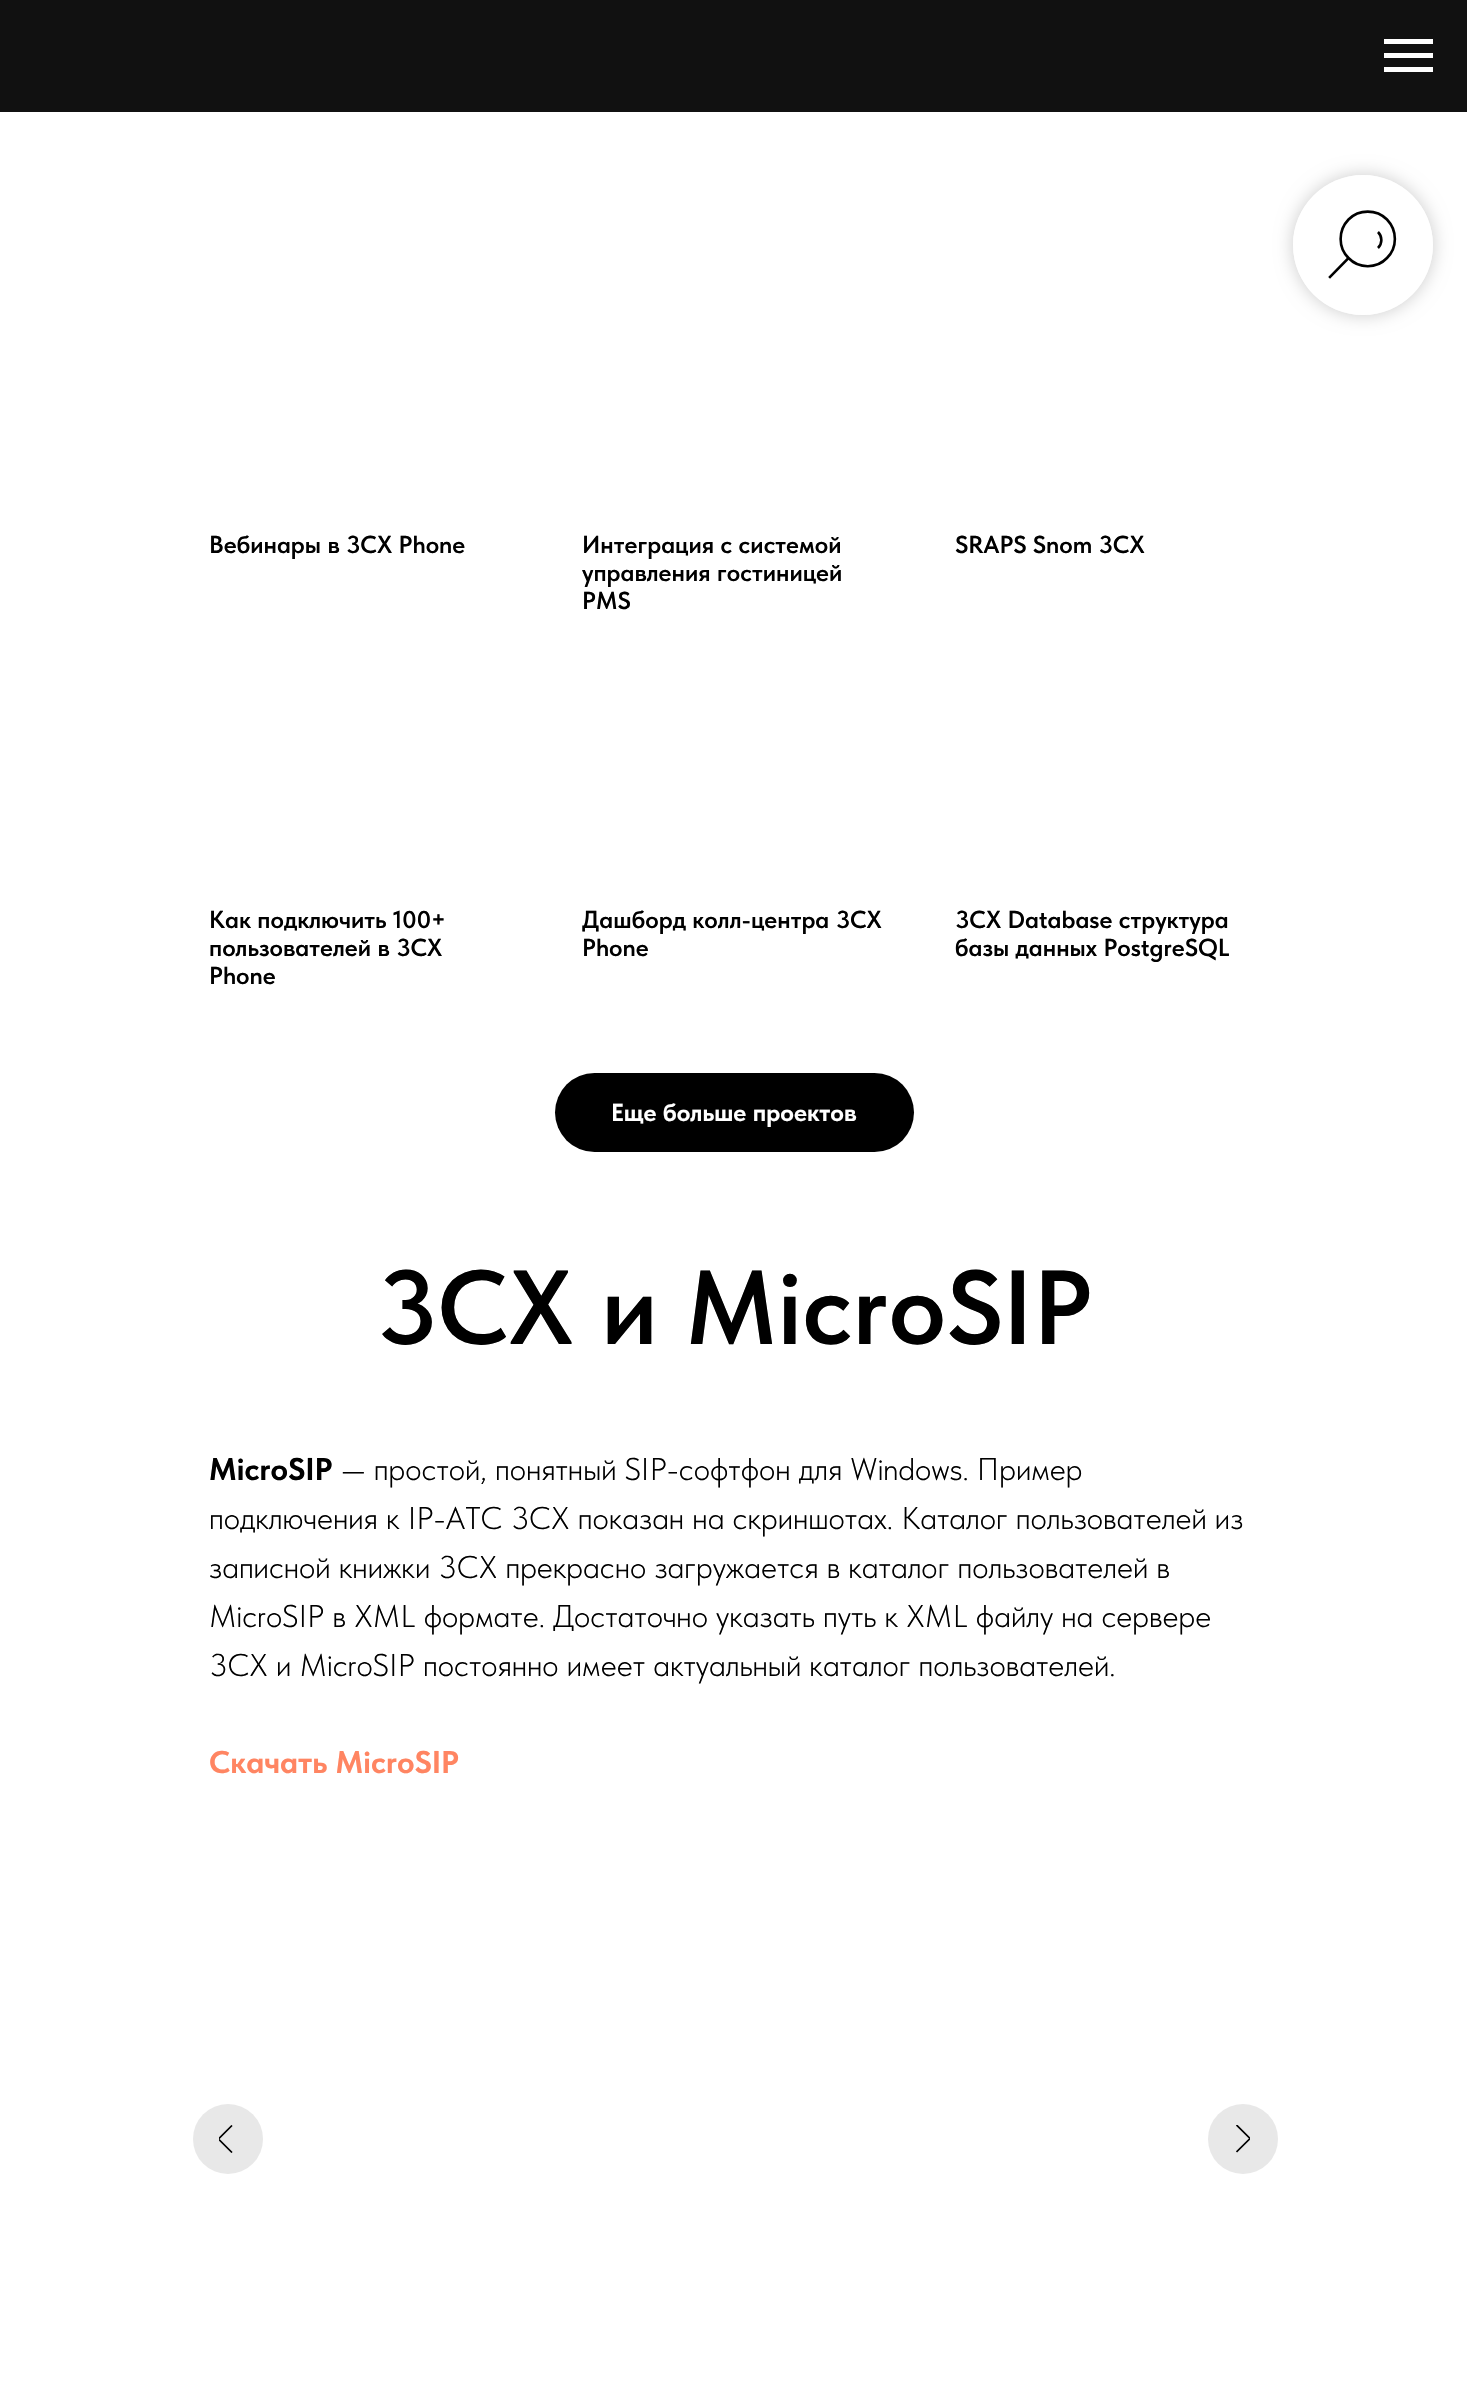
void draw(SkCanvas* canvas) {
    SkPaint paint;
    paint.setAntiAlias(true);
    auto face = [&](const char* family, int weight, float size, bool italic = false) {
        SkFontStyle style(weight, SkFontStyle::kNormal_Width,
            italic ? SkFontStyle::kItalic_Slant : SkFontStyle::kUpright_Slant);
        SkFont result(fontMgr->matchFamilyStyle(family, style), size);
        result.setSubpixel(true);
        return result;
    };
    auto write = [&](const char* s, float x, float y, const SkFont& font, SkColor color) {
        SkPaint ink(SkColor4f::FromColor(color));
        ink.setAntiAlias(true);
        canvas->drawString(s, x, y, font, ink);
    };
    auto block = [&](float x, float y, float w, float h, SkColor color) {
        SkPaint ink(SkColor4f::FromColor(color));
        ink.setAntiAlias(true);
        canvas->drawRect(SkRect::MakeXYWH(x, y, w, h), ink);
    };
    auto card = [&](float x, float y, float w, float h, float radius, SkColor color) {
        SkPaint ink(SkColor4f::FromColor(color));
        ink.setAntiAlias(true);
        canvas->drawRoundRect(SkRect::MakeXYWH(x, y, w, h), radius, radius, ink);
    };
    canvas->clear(SK_ColorWHITE);
    block(0, 0, 1467, 112, SkColorSetRGB(17, 17, 17));
    block(1384, 39, 49, 5, SK_ColorWHITE);
    block(1384, 53, 49, 5, SK_ColorWHITE);
    block(1384, 67, 49, 5, SK_ColorWHITE);
    canvas->save();
    canvas->clipPath(SkPathBuilder(SkPathFillType::kEvenOdd).moveTo(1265, 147).lineTo(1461, 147).lineTo(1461, 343).lineTo(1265, 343).close().moveTo(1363, 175).cubicTo(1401.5f, 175, 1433, 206.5f, 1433, 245).cubicTo(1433, 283.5f, 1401.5f, 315, 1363, 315).cubicTo(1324.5f, 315, 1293, 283.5f, 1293, 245).cubicTo(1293, 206.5f, 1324.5f, 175, 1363, 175).close().detach(), true);
    paint.setColor(SkColorSetARGB(51, 0, 0, 0));
    paint.setMaskFilter(SkMaskFilter::MakeBlur(kNormal_SkBlurStyle, 9));
    canvas->drawRoundRect(SkRect::MakeXYWH(1293, 175, 140, 140), 70, 70, paint);
    paint.setMaskFilter(nullptr);
    canvas->restore();
    paint.setColor(SkColorSetARGB(204, 255, 255, 255));
    canvas->drawCircle(1363, 245, 70, paint);
    paint.setStyle(SkPaint::kStroke_Style);
    paint.setStrokeWidth(2.6f);
    paint.setStrokeCap(SkPaint::kSquare_Cap);
    paint.setColor(SK_ColorBLACK);
    canvas->drawPath(SkPathBuilder().moveTo(1347.5f, 259).lineTo(1330, 277).detach(), paint);
    paint.setStrokeCap(SkPaint::kButt_Cap);
    canvas->drawPath(SkPathBuilder().moveTo(1387, 219.5f).cubicTo(1397.5f, 230.5f, 1397.5f, 247.5f, 1387, 258).cubicTo(1376.5f, 269, 1359, 269, 1348.5f, 258).cubicTo(1338, 247.5f, 1338, 230.5f, 1348.5f, 219.5f).cubicTo(1359, 209, 1376.5f, 209, 1387, 219.5f).close().moveTo(1378, 232).cubicTo(1382.5f, 236.5f, 1382.5f, 243.5f, 1378, 248).detach(), paint);
    auto kFont1 = face("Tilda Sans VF", 600, 24.5f);
    write("Вебинары в 3CX Phone", 209, 553, kFont1, SK_ColorBLACK);
    write("Интеграция с системой", 582, 553, kFont1, SK_ColorBLACK);
    write("управления гостиницей", 582, 581, kFont1, SK_ColorBLACK);
    write("PMS", 582, 609, kFont1, SK_ColorBLACK);
    write("SRAPS Snom 3CX", 955, 553, kFont1, SK_ColorBLACK);
    write("Как подключить 100+", 209, 928, kFont1, SK_ColorBLACK);
    write("пользователей в 3CX", 209, 956, kFont1, SK_ColorBLACK);
    write("Phone", 209, 984, kFont1, SK_ColorBLACK);
    write("Дашборд колл-центра 3CX", 582, 928, kFont1, SK_ColorBLACK);
    write("Phone", 582, 956, kFont1, SK_ColorBLACK);
    write("3CX Database структура", 955, 928, kFont1, SK_ColorBLACK);
    write("базы данных PostgreSQL", 955, 956, kFont1, SK_ColorBLACK);
    card(555, 1073, 359, 79, 39.5f, SK_ColorBLACK);
    auto kFont2 = face("Tilda Sans VF", 700, 24.5f);
    write("Еще больше проектов", 611, 1121, kFont2, SK_ColorWHITE);
    auto kFont3 = face("Tilda Sans VF", 600, 105);
    write("3CX и MicroSIP", 376, 1344, kFont3, SK_ColorBLACK);
    auto kFont4 = face("Tilda Sans VF", 700, 31.5f);
    write("MicroSIP", 209, 1480, kFont4, SK_ColorBLACK);
    auto kFont5 = face("Tilda Sans VF", 300, 31.5f);
    write("— простой, понятный SIP-софтфон для Windows. Пример", 341, 1480, kFont5, SK_ColorBLACK);
    write("подключения к IP-АТС 3CX показан на скриншотах. Каталог пользователей из", 209, 1529, kFont5, SK_ColorBLACK);
    write("записной книжки 3CX прекрасно загружается в каталог пользователей в", 209, 1578, kFont5, SK_ColorBLACK);
    write("MicroSIP в XML формате. Достаточно указать путь к XML файлу на сервере", 209, 1627, kFont5, SK_ColorBLACK);
    write("3CX и MicroSIP постоянно имеет актуальный каталог пользователей.", 209, 1676, kFont5, SK_ColorBLACK);
    write("Скачать MicroSIP", 209, 1773, kFont4, SkColorSetRGB(255, 133, 98));
    paint.setStyle(SkPaint::kFill_Style);
    paint.setColor(SkColorSetRGB(232, 232, 232));
    canvas->drawCircle(228, 2139, 35, paint);
    canvas->save();
    canvas->clipRect(SkRect::MakeXYWH(219, 2125, 16, 28));
    paint.setStyle(SkPaint::kStroke_Style);
    paint.setStrokeWidth(1.7f);
    paint.setColor(SK_ColorBLACK);
    canvas->drawPath(SkPathBuilder().moveTo(232, 2152.5f).lineTo(218.5f, 2139).lineTo(232, 2125.5f).detach(), paint);
    canvas->restore();
    paint.setStyle(SkPaint::kFill_Style);
    paint.setColor(SkColorSetRGB(232, 232, 232));
    canvas->drawCircle(1243, 2139, 35, paint);
    canvas->save();
    canvas->clipRect(SkRect::MakeXYWH(1236, 2125, 14, 29));
    paint.setStyle(SkPaint::kStroke_Style);
    paint.setColor(SK_ColorBLACK);
    canvas->drawPath(SkPathBuilder().moveTo(1236.5f, 2125).lineTo(1250, 2138.5f).lineTo(1236.5f, 2152).detach(), paint);
    canvas->restore();
}
